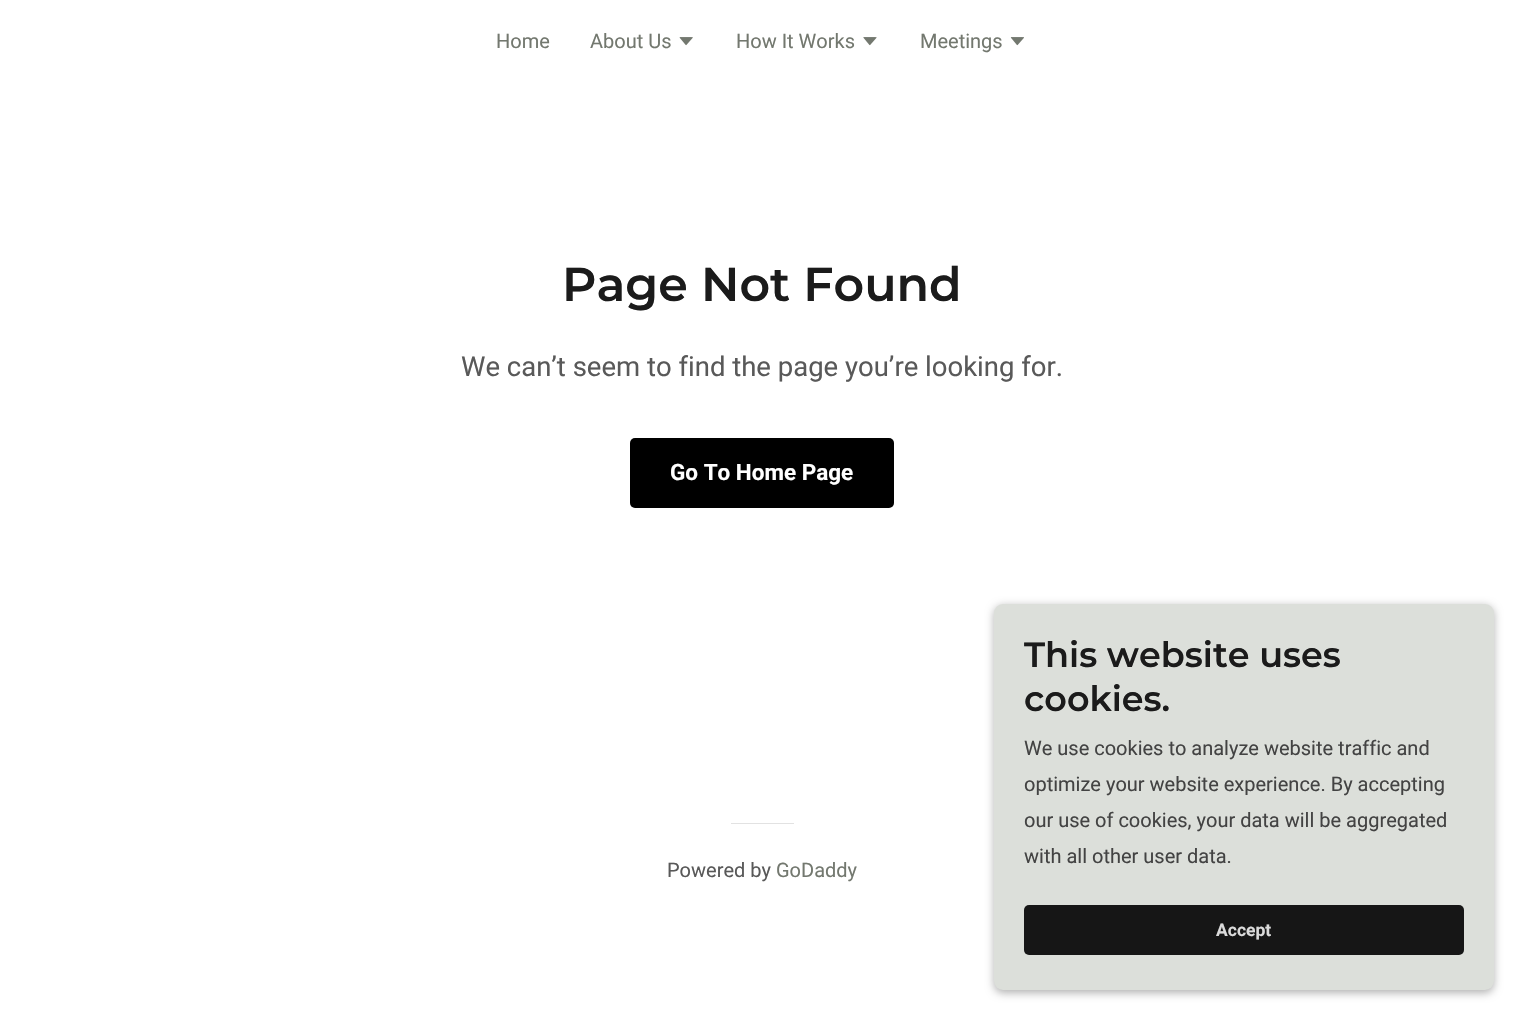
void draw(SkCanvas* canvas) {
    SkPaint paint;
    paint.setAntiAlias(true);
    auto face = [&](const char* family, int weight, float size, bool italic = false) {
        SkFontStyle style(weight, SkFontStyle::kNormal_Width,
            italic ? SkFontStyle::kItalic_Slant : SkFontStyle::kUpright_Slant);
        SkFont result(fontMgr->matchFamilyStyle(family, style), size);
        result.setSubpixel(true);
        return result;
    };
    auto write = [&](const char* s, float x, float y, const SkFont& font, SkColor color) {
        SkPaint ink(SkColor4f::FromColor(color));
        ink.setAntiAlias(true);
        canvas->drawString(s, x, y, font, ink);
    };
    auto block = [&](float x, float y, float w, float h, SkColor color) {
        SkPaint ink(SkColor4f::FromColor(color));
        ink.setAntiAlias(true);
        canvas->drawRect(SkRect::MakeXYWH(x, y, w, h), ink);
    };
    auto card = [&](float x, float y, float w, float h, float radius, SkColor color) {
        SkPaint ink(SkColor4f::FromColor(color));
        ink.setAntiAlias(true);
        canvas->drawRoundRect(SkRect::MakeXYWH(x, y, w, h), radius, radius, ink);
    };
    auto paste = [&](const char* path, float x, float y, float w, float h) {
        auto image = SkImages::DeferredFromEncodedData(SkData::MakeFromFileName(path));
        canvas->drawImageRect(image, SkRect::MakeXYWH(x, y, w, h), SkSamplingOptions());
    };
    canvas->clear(SK_ColorWHITE);
    auto kFont1 = face("Roboto", 400, 20);
    write("Home", 496, 48, kFont1, SkColorSetRGB(115, 120, 111));
    write("About Us", 590, 48, kFont1, SkColorSetRGB(115, 120, 111));
    paste("pic1.png", 679, 37, 14, 9);
    write("How It Works", 736, 48, kFont1, SkColorSetRGB(115, 120, 111));
    paste("pic2.png", 863, 37, 14, 9);
    write("Meetings", 920, 48, kFont1, SkColorSetRGB(115, 120, 111));
    paste("pic3.png", 1010, 37, 14, 9);
    auto kFont2 = face("Montserrat", 600, 47.5f);
    write("Page Not Found", 562, 301, kFont2, SkColorSetRGB(27, 27, 27));
    auto kFont3 = face("Roboto", 400, 27.5f);
    write("We can’t seem to find the page you’re looking for.", 461, 376, kFont3, SkColorSetRGB(89, 89, 89));
    card(630, 438, 264, 70, 5, SK_ColorBLACK);
    auto kFont4 = face("Roboto", 700, 22.5f);
    write("Go To Home Page", 670, 480, kFont4, SK_ColorWHITE);
    block(731, 823, 63, 1, SkColorSetRGB(226, 226, 226));
    write("Powered by", 667, 877, kFont1, SkColorSetRGB(89, 89, 89));
    write("GoDaddy", 776, 877, kFont1, SkColorSetRGB(115, 120, 111));
    paint.setColor(SkColorSetARGB(77, 0, 0, 0));
    paint.setMaskFilter(SkMaskFilter::MakeBlur(kNormal_SkBlurStyle, 4));
    canvas->drawRoundRect(SkRect::MakeXYWH(994, 606, 500, 387), 9, 9, paint);
    paint.setMaskFilter(nullptr);
    card(994, 604, 500, 386, 9, SkColorSetRGB(220, 223, 218));
    auto kFont5 = face("Montserrat", 600, 35);
    write("This website uses", 1024, 667, kFont5, SkColorSetRGB(27, 27, 27));
    write("cookies.", 1024, 711, kFont5, SkColorSetRGB(27, 27, 27));
    write("We use cookies to analyze website traffic and", 1024, 755, kFont1, SkColorSetRGB(67, 67, 67));
    write("optimize your website experience. By accepting", 1024, 791, kFont1, SkColorSetRGB(67, 67, 67));
    write("our use of cookies, your data will be aggregated", 1024, 827, kFont1, SkColorSetRGB(67, 67, 67));
    write("with all other user data.", 1024, 863, kFont1, SkColorSetRGB(67, 67, 67));
    card(1024, 905, 440, 50, 5, SkColorSetRGB(22, 22, 22));
    auto kFont6 = face("Roboto", 700, 17.5f);
    write("Accept", 1216, 936, kFont6, SkColorSetRGB(219, 219, 219));
}
